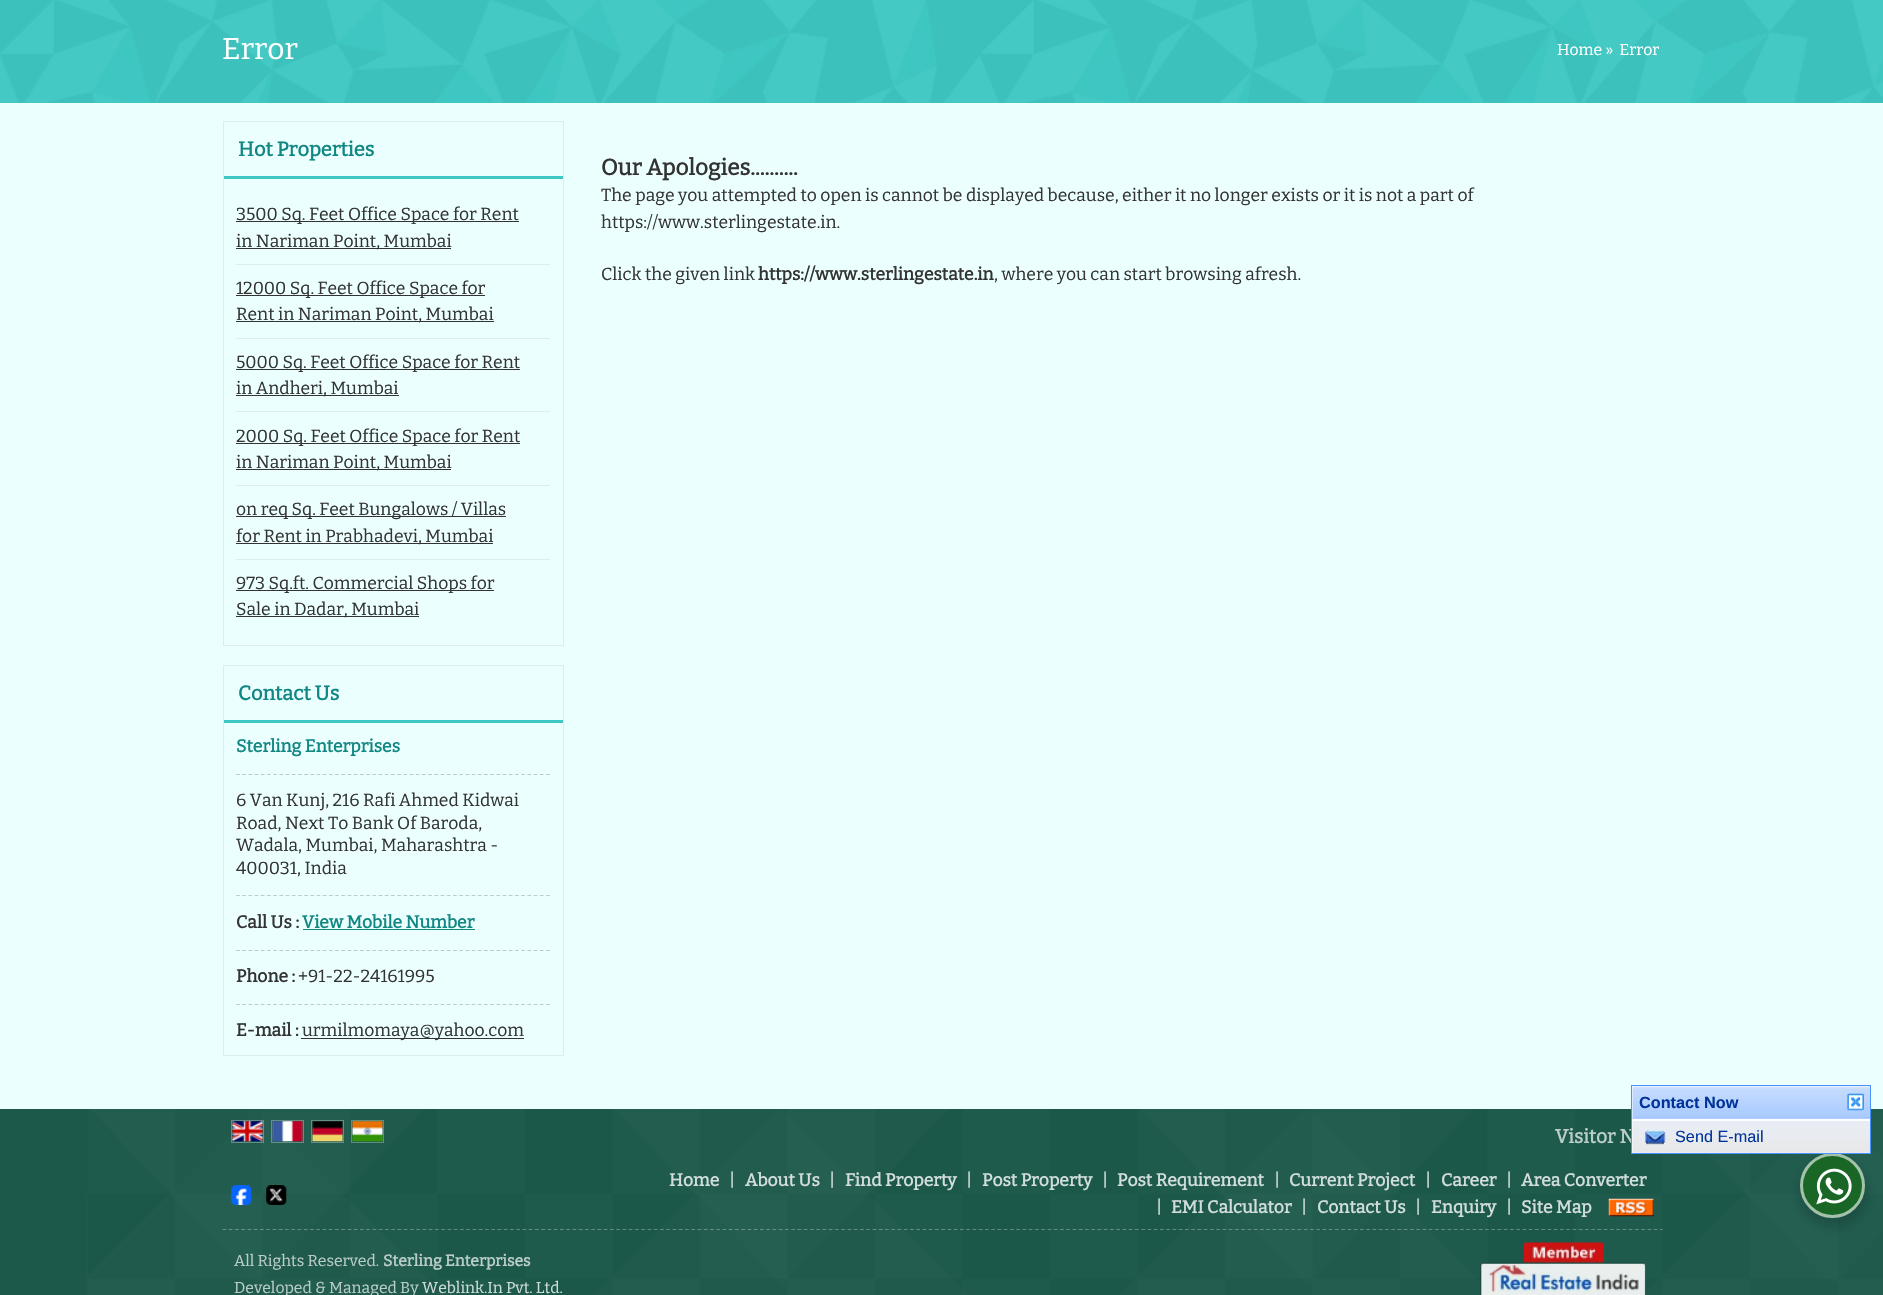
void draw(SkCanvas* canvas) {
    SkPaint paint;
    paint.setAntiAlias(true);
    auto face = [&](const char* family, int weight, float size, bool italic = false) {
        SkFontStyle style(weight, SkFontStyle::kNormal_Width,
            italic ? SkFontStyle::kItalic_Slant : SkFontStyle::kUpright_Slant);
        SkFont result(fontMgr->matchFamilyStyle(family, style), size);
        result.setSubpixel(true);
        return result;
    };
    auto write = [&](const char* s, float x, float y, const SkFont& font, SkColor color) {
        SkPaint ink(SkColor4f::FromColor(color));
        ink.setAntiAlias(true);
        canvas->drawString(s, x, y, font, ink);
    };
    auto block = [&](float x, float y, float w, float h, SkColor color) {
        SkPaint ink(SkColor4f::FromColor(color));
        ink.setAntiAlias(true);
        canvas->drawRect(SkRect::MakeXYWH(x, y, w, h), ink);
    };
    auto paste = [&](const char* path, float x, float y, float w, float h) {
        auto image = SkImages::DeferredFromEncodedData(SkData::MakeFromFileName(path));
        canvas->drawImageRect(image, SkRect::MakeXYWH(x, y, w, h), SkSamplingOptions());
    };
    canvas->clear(SkColorSetRGB(235, 255, 254));
    block(0, 0, 1883, 103, SkColorSetRGB(62, 199, 194));
    paste("pic1.png", 0, 0, 1883, 103);
    auto kFont1 = face("Bitter", 100, 30);
    write("Error", 222, 59, kFont1, SK_ColorWHITE);
    auto kFont2 = face("Bitter", 100, 15.75f);
    write("Home »  Error", 1557, 55, kFont2, SK_ColorWHITE);
    paint.setStyle(SkPaint::kStroke_Style);
    paint.setStrokeWidth(1);
    paint.setColor(SkColorSetRGB(219, 237, 236));
    canvas->drawRect(SkRect::MakeXYWH(223.5f, 121.5f, 340, 524), paint);
    block(224, 176, 339, 3, SkColorSetRGB(62, 199, 194));
    auto kFont3 = face("Bitter", 700, 20);
    write("Hot Properties", 238, 156, kFont3, SkColorSetRGB(17, 135, 131));
    block(236, 264, 314, 1, SkColorSetRGB(219, 237, 236));
    block(236, 221, 283, 1, SkColorSetRGB(51, 51, 51));
    auto kFont4 = face("Bitter", 100, 17.5f);
    write("3500 Sq. Feet Office Space for Rent", 236, 220, kFont4, SkColorSetRGB(51, 51, 51));
    block(236, 248, 215, 1, SkColorSetRGB(51, 51, 51));
    write("in Nariman Point, Mumbai", 236, 247, kFont4, SkColorSetRGB(51, 51, 51));
    block(236, 338, 314, 1, SkColorSetRGB(219, 237, 236));
    block(236, 295, 249, 1, SkColorSetRGB(51, 51, 51));
    write("12000 Sq. Feet Office Space for", 236, 294, kFont4, SkColorSetRGB(51, 51, 51));
    block(236, 321, 258, 1, SkColorSetRGB(51, 51, 51));
    write("Rent in Nariman Point, Mumbai", 236, 320, kFont4, SkColorSetRGB(51, 51, 51));
    block(236, 411, 314, 1, SkColorSetRGB(219, 237, 236));
    block(236, 369, 284, 1, SkColorSetRGB(51, 51, 51));
    write("5000 Sq. Feet Office Space for Rent", 236, 368, kFont4, SkColorSetRGB(51, 51, 51));
    block(236, 395, 163, 1, SkColorSetRGB(51, 51, 51));
    write("in Andheri, Mumbai", 236, 394, kFont4, SkColorSetRGB(51, 51, 51));
    block(236, 485, 314, 1, SkColorSetRGB(219, 237, 236));
    block(236, 443, 284, 1, SkColorSetRGB(51, 51, 51));
    write("2000 Sq. Feet Office Space for Rent", 236, 442, kFont4, SkColorSetRGB(51, 51, 51));
    block(236, 469, 215, 1, SkColorSetRGB(51, 51, 51));
    write("in Nariman Point, Mumbai", 236, 468, kFont4, SkColorSetRGB(51, 51, 51));
    block(236, 559, 314, 1, SkColorSetRGB(219, 237, 236));
    block(236, 516, 270, 1, SkColorSetRGB(51, 51, 51));
    write("on req Sq. Feet Bungalows / Villas", 236, 515, kFont4, SkColorSetRGB(51, 51, 51));
    block(236, 543, 257, 1, SkColorSetRGB(51, 51, 51));
    write("for Rent in Prabhadevi, Mumbai", 236, 542, kFont4, SkColorSetRGB(51, 51, 51));
    block(236, 590, 258, 1, SkColorSetRGB(51, 51, 51));
    write("973 Sq.ft. Commercial Shops for", 236, 589, kFont4, SkColorSetRGB(51, 51, 51));
    block(236, 616, 183, 1, SkColorSetRGB(51, 51, 51));
    write("Sale in Dadar, Mumbai", 236, 615, kFont4, SkColorSetRGB(51, 51, 51));
    canvas->drawRect(SkRect::MakeXYWH(223.5f, 665.5f, 340, 390), paint);
    block(224, 720, 339, 3, SkColorSetRGB(62, 199, 194));
    write("Contact Us", 238, 700, kFont3, SkColorSetRGB(17, 135, 131));
    auto kFont5 = face("Bitter", 700, 17.5f);
    write("Sterling Enterprises", 236, 752, kFont5, SkColorSetRGB(17, 135, 131));
    paint.setStrokeWidth(1.2f);
    paint.setColor(SkColorSetRGB(188, 204, 203));
    paint.setPathEffect(SkDashPathEffect::Make({{3.75f, 2.45f}}, 0));
    canvas->drawPath(SkPathBuilder().moveTo(236, 774.5f).lineTo(550, 774.5f).detach(), paint);
    paint.setPathEffect(nullptr);
    write("6 Van Kunj, 216 Rafi Ahmed Kidwai", 236, 806, kFont4, SkColorSetRGB(51, 51, 51));
    write("Road, Next To Bank Of Baroda,", 236, 829, kFont4, SkColorSetRGB(51, 51, 51));
    write("Wadala, Mumbai, Maharashtra -", 236, 851, kFont4, SkColorSetRGB(51, 51, 51));
    write("400031, India", 236, 874, kFont4, SkColorSetRGB(51, 51, 51));
    paint.setPathEffect(SkDashPathEffect::Make({{3.75f, 2.45f}}, 0));
    canvas->drawPath(SkPathBuilder().moveTo(236, 895.5f).lineTo(550, 895.5f).detach(), paint);
    paint.setPathEffect(nullptr);
    write("Call Us :", 236, 928, kFont5, SkColorSetRGB(51, 51, 51));
    write("View Mobile Number", 302, 928, kFont5, SkColorSetRGB(17, 135, 131));
    block(303, 929, 172, 1, SkColorSetRGB(17, 135, 131));
    paint.setPathEffect(SkDashPathEffect::Make({{3.75f, 2.45f}}, 0));
    canvas->drawPath(SkPathBuilder().moveTo(236, 950.5f).lineTo(550, 950.5f).detach(), paint);
    paint.setPathEffect(nullptr);
    write("Phone :", 236, 982, kFont5, SkColorSetRGB(51, 51, 51));
    write("+91-22-24161995", 298, 982, kFont4, SkColorSetRGB(51, 51, 51));
    paint.setPathEffect(SkDashPathEffect::Make({{3.75f, 2.45f}}, 0));
    canvas->drawPath(SkPathBuilder().moveTo(236, 1004.5f).lineTo(550, 1004.5f).detach(), paint);
    paint.setPathEffect(nullptr);
    write("E-mail :", 236, 1036, kFont5, SkColorSetRGB(51, 51, 51));
    block(301, 1038, 223, 1, SkColorSetRGB(51, 51, 51));
    write("urmilmomaya@yahoo.com", 302, 1036, kFont4, SkColorSetRGB(51, 51, 51));
    auto kFont6 = face("Bitter", 700, 22.5f);
    write("Our Apologies..........", 601, 175, kFont6, SkColorSetRGB(51, 51, 51));
    write("The page you attempted to open is cannot be displayed because, either it no longer exists or it is not a part of", 601, 201, kFont4, SkColorSetRGB(51, 51, 51));
    write("https://www.sterlingestate.in.", 601, 228, kFont4, SkColorSetRGB(51, 51, 51));
    write("Click the given link", 601, 280, kFont4, SkColorSetRGB(51, 51, 51));
    write("https://www.sterlingestate.in", 758, 280, kFont5, SkColorSetRGB(51, 51, 51));
    write(", where you can start browsing afresh.", 994, 280, kFont4, SkColorSetRGB(51, 51, 51));
    block(0, 1109, 1883, 186, SkColorSetRGB(28, 89, 75));
    paste("pic6.png", 86, 1109, 1797, 186);
    auto kFont7 = face("Bitter", 700, 19.25f);
    write("Visitor N", 1555, 1143, kFont7, SkColorSetRGB(187, 205, 201));
    paint.setStyle(SkPaint::kFill_Style);
    paint.setColor(SkColorSetARGB(36, 0, 0, 0));
    paint.setMaskFilter(SkMaskFilter::MakeBlur(kNormal_SkBlurStyle, 5));
    canvas->drawRoundRect(SkRect::MakeXYWH(1798, 1158, 70, 70), 35, 35, paint);
    paint.setMaskFilter(nullptr);
    paint.setColor(SkColorSetRGB(25, 102, 38));
    canvas->drawCircle(1832.5f, 1185.5f, 32.5f, paint);
    paint.setStyle(SkPaint::kStroke_Style);
    paint.setStrokeWidth(3);
    paint.setColor(SkColorSetARGB(153, 255, 255, 255));
    canvas->drawCircle(1832.5f, 1185.5f, 31, paint);
    paint.setStyle(SkPaint::kFill_Style);
    paint.setColor(SK_ColorWHITE);
    canvas->drawRect(SkRect::MakeXYWH(1631.5f, 1085.5f, 239, 68), paint);
    paint.setStyle(SkPaint::kStroke_Style);
    paint.setStrokeWidth(1);
    paint.setColor(SkColorSetRGB(75, 147, 255));
    canvas->drawRect(SkRect::MakeXYWH(1631.5f, 1085.5f, 239, 68), paint);
    paste("pic2.png", 1632, 1086, 238, 33);
    auto kFont8 = face("Liberation Sans", 700, 16.25f);
    write("Contact Now", 1639, 1108, kFont8, SkColorSetRGB(0, 51, 153));
    paste("pic3.png", 1847, 1093, 17, 18);
    block(1633, 1121, 237, 32, SkColorSetRGB(232, 237, 245));
    paste("pic4.png", 1632, 1122, 238, 31);
    paste("pic5.png", 1645, 1130, 21, 15);
    auto kFont9 = face("Liberation Sans", 400, 16.25f);
    write("Send E-mail", 1675, 1142, kFont9, SkColorSetRGB(0, 51, 153));
    paint.setColor(SkColorSetARGB(77, 255, 255, 255));
    canvas->drawRect(SkRect::MakeXYWH(231.5f, 1120.5f, 32, 22), paint);
    canvas->drawRect(SkRect::MakeXYWH(271.5f, 1120.5f, 32, 22), paint);
    paint.setColor(SkColorSetRGB(100, 142, 132));
    canvas->drawRect(SkRect::MakeXYWH(311.5f, 1120.5f, 32, 22), paint);
    paint.setColor(SkColorSetRGB(98, 139, 130));
    canvas->drawRect(SkRect::MakeXYWH(351.5f, 1120.5f, 32, 22), paint);
    paste("pic7.png", 232, 1121, 31, 21);
    paste("pic8.png", 272, 1121, 31, 21);
    paste("pic9.png", 312, 1121, 31, 21);
    paste("pic10.png", 352, 1121, 31, 21);
    paste("pic11.png", 231, 1185, 21, 20);
    paste("pic12.png", 266, 1185, 21, 20);
    write("Home", 669, 1186, kFont5, SkColorSetRGB(210, 222, 220));
    write("|", 729, 1186, kFont5, SkColorSetRGB(187, 205, 201));
    write("About Us", 745, 1186, kFont5, SkColorSetRGB(210, 222, 220));
    write("|", 829, 1186, kFont5, SkColorSetRGB(187, 205, 201));
    write("Find Property", 845, 1186, kFont5, SkColorSetRGB(210, 222, 220));
    write("|", 966, 1186, kFont5, SkColorSetRGB(187, 205, 201));
    write("Post Property", 982, 1186, kFont5, SkColorSetRGB(210, 222, 220));
    write("|", 1102, 1186, kFont5, SkColorSetRGB(187, 205, 201));
    write("Post Requirement", 1117, 1186, kFont5, SkColorSetRGB(210, 222, 220));
    write("|", 1274, 1186, kFont5, SkColorSetRGB(187, 205, 201));
    write("Current Project", 1289, 1186, kFont5, SkColorSetRGB(210, 222, 220));
    write("|", 1425, 1186, kFont5, SkColorSetRGB(187, 205, 201));
    write("Career", 1441, 1186, kFont5, SkColorSetRGB(210, 222, 220));
    write("|", 1506, 1186, kFont5, SkColorSetRGB(187, 205, 201));
    write("Area Converter", 1521, 1186, kFont5, SkColorSetRGB(210, 222, 220));
    write("|", 1156, 1213, kFont5, SkColorSetRGB(187, 205, 201));
    write("EMI Calculator", 1171, 1213, kFont5, SkColorSetRGB(210, 222, 220));
    write("|", 1301, 1213, kFont5, SkColorSetRGB(187, 205, 201));
    write("Contact Us", 1317, 1213, kFont5, SkColorSetRGB(210, 222, 220));
    write("|", 1415, 1213, kFont5, SkColorSetRGB(187, 205, 201));
    write("Enquiry", 1431, 1213, kFont5, SkColorSetRGB(210, 222, 220));
    write("|", 1506, 1213, kFont5, SkColorSetRGB(187, 205, 201));
    write("Site Map", 1521, 1213, kFont5, SkColorSetRGB(210, 222, 220));
    paste("pic13.png", 1608, 1198, 46, 19);
    paint.setStrokeWidth(1.2f);
    paint.setColor(SkColorSetARGB(77, 255, 255, 255));
    paint.setPathEffect(SkDashPathEffect::Make({{3.75f, 2.5f}}, 0));
    canvas->drawPath(SkPathBuilder().moveTo(222.5f, 1229.5f).lineTo(1662.5f, 1229.5f).detach(), paint);
    paint.setPathEffect(nullptr);
    write("All Rights Reserved.", 234, 1266, kFont2, SkColorSetRGB(187, 205, 201));
    auto kFont10 = face("Bitter", 700, 15.75f);
    write("Sterling Enterprises", 383, 1266, kFont10, SkColorSetRGB(187, 205, 201));
    write("Developed & Managed By", 234, 1293, kFont2, SkColorSetRGB(187, 205, 201));
    write("Weblink.In Pvt. Ltd.", 422, 1293, kFont2, SkColorSetRGB(210, 222, 220));
    paste("pic14.png", 1480, 1242, 166, 53);
    paste("pic15.png", 1816, 1168, 36, 37);
}
